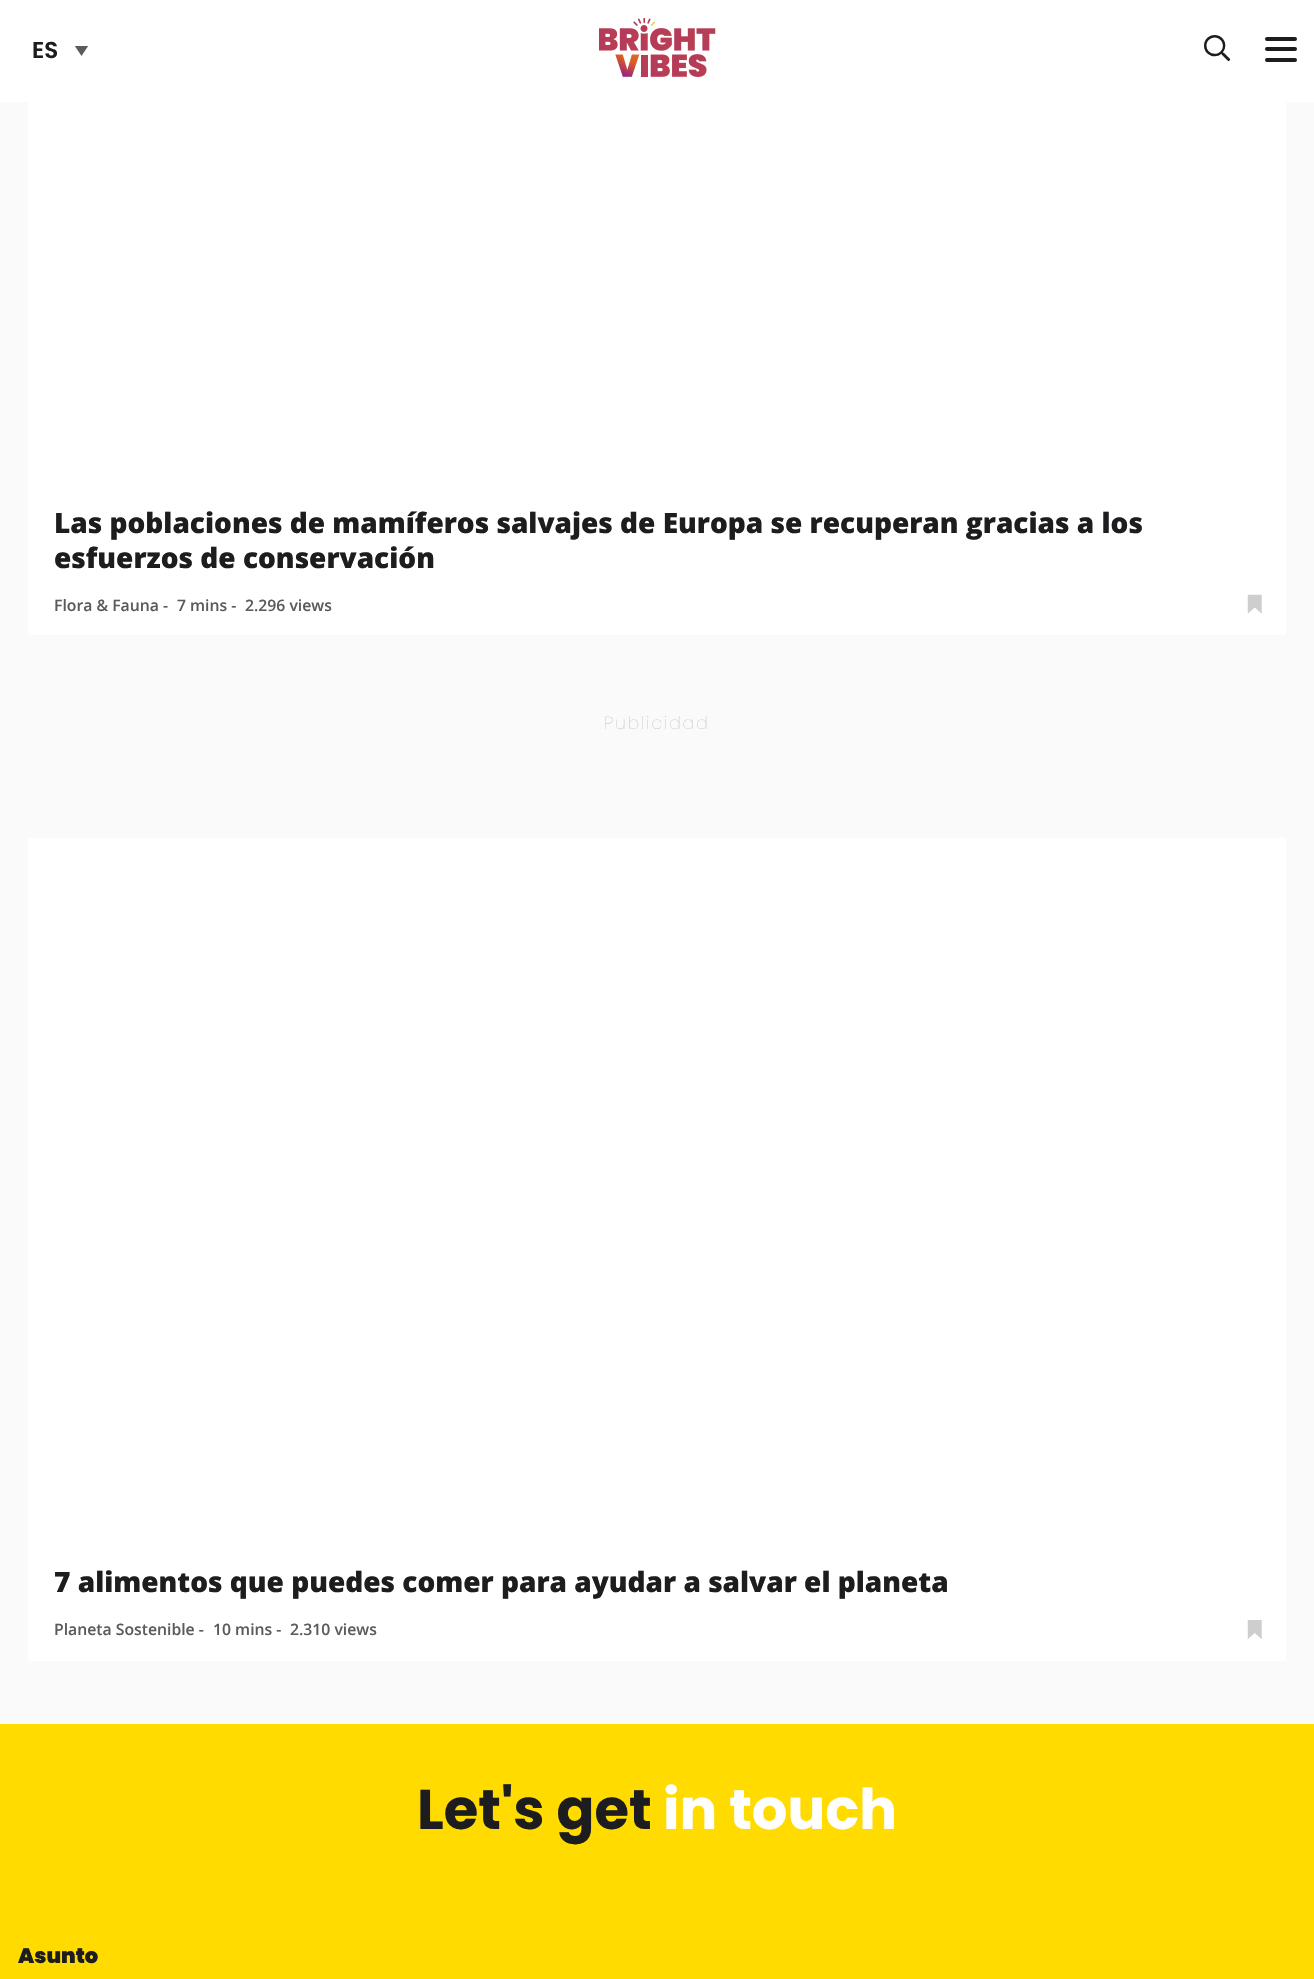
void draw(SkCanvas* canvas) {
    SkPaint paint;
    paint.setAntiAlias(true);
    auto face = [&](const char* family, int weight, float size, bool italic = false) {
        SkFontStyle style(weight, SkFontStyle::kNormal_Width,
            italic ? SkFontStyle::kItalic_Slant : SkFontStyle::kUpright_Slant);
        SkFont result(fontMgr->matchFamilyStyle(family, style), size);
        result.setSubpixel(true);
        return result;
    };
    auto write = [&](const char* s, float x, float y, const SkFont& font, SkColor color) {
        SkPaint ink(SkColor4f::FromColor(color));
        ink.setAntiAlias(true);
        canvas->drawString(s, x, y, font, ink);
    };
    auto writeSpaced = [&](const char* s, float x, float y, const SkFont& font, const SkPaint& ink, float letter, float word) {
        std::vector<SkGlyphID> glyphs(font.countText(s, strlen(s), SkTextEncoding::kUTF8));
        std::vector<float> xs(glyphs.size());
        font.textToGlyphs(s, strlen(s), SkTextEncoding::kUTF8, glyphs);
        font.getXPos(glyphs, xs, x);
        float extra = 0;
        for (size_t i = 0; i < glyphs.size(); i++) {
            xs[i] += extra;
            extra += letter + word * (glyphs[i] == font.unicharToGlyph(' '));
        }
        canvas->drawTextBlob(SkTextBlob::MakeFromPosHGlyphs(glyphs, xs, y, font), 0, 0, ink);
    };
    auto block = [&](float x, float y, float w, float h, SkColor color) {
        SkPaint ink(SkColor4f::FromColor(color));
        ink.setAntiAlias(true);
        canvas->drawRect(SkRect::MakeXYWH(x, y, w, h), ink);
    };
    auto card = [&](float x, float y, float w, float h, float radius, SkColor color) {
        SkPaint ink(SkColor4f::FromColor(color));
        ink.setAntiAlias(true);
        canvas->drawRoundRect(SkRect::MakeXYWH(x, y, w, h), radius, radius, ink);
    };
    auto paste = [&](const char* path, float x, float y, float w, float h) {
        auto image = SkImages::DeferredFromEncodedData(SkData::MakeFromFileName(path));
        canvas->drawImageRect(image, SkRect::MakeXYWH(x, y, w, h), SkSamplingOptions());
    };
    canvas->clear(SkColorSetRGB(250, 250, 250));
    block(0, 0, 1314, 102, SK_ColorWHITE);
    canvas->save();
    canvas->clipRect(SkRect::MakeXYWH(74, 46, 15, 10));
    paint.setColor(SkColorSetRGB(91, 91, 91));
    canvas->drawPath(SkPathBuilder().moveTo(74.5f, 45.5f).lineTo(88.5f, 45.5f).lineTo(81.5f, 56).close().detach(), paint);
    canvas->restore();
    auto kFont1 = face("Poppins", 600, 23);
    write("ES", 32, 58, kFont1, SkColorSetRGB(29, 29, 31));
    paste("pic1.png", 599, 18, 117, 59);
    paste("pic2.png", 1204, 35, 27, 27);
    card(1265, 47, 32, 4, 2, SkColorSetRGB(29, 29, 31));
    card(1265, 37, 32, 4, 2, SkColorSetRGB(29, 29, 31));
    card(1265, 58, 32, 4, 2, SkColorSetRGB(29, 29, 31));
    block(28, 102, 1258, 533, SK_ColorWHITE);
    auto kFont2 = face("Open Sans", 800, 28);
    write("Las poblaciones de mamíferos salvajes de Europa se recuperan gracias a los", 54, 533, kFont2, SkColorSetRGB(29, 29, 31));
    write("esfuerzos de conservación", 54, 568, kFont2, SkColorSetRGB(29, 29, 31));
    auto kFont3 = face("Open Sans", 600, 15.75f);
    write("Flora & Fauna -", 54, 611, kFont3, SkColorSetRGB(91, 91, 91));
    write("7 mins -", 177, 611, kFont3, SkColorSetRGB(91, 91, 91));
    write("2.296 views", 245, 611, kFont3, SkColorSetRGB(91, 91, 91));
    paste("pic3.png", 1247, 594, 15, 20);
    auto kFont4 = face("Poppins", 200, 17.5f);
    paint.setColor(SkColorSetRGB(195, 195, 195));
    writeSpaced("Publicidad", 604, 729, kFont4, paint, 1.75f, 0);
    block(28, 838, 1258, 823, SK_ColorWHITE);
    write("7 alimentos que puedes comer para ayudar a salvar el planeta", 54, 1592, kFont2, SkColorSetRGB(29, 29, 31));
    write("Planeta Sostenible -", 54, 1635, kFont3, SkColorSetRGB(91, 91, 91));
    write("10 mins -", 213, 1635, kFont3, SkColorSetRGB(91, 91, 91));
    write("2.310 views", 290, 1635, kFont3, SkColorSetRGB(91, 91, 91));
    paste("pic4.png", 1247, 1620, 15, 19);
    block(0, 1724, 1314, 255, SkColorSetRGB(255, 219, 0));
    auto kFont5 = face("Poppins", 700, 56);
    write("Let's get", 417, 1829, kFont5, SkColorSetRGB(29, 29, 31));
    write("in touch", 663, 1829, kFont5, SK_ColorWHITE);
    auto kFont6 = face("Poppins", 900, 21);
    write("Asunto", 18, 1963, kFont6, SkColorSetRGB(29, 29, 31));
}
